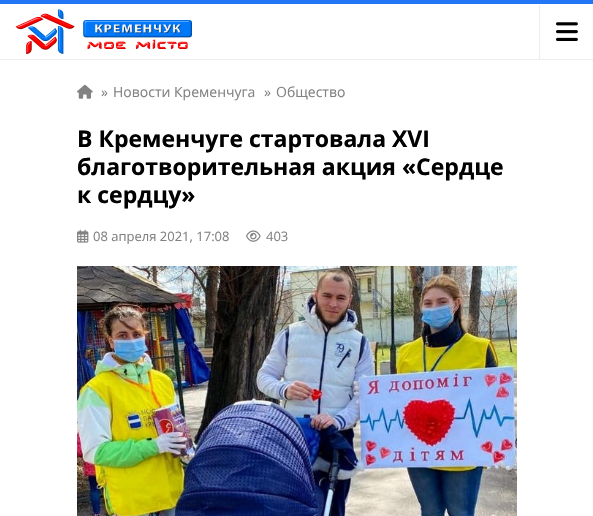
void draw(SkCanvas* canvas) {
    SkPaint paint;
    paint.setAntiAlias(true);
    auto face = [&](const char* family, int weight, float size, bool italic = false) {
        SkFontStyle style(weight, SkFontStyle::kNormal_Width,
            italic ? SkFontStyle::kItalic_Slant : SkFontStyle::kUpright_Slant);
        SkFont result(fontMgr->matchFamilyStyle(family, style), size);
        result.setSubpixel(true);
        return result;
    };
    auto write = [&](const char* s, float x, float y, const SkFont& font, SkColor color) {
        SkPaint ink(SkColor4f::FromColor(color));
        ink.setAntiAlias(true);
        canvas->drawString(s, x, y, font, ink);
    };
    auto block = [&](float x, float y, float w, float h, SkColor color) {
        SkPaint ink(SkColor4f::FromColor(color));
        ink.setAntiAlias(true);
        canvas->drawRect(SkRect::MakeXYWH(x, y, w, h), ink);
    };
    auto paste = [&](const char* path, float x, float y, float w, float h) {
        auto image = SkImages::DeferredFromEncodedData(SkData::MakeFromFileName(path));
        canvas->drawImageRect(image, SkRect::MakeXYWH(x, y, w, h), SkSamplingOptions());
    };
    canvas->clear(SK_ColorWHITE);
    block(0, 0, 593, 4, SkColorSetRGB(34, 119, 246));
    block(0, 59, 593, 1, SkColorSetRGB(237, 237, 237));
    paste("pic1.png", 15, 9, 177, 45);
    block(539, 5, 1, 54, SkColorSetRGB(237, 237, 237));
    paste("pic2.png", 556, 22, 22, 19);
    paste("pic3.png", 77, 84, 16, 15);
    auto kFont1 = face("Open Sans", 400, 14);
    write("»", 101, 97, kFont1, SkColorSetRGB(130, 130, 130));
    write("Новости Кременчуга", 113, 97, kFont1, SkColorSetRGB(130, 130, 130));
    write("»", 264, 97, kFont1, SkColorSetRGB(130, 130, 130));
    write("Общество", 276, 97, kFont1, SkColorSetRGB(130, 130, 130));
    auto kFont2 = face("Open Sans", 700, 23);
    write("В Кременчуге стартовала XVI", 77, 147, kFont2, SK_ColorBLACK);
    write("благотворительная акция «Сердце", 77, 175, kFont2, SK_ColorBLACK);
    write("к сердцу»", 77, 203, kFont2, SK_ColorBLACK);
    paste("pic4.png", 77, 229, 12, 14);
    auto kFont3 = face("Open Sans", 400, 13);
    write("08 апреля 2021, 17:08", 93, 241, kFont3, SkColorSetRGB(130, 130, 130));
    paste("pic5.png", 246, 230, 15, 12);
    write("403", 266, 241, kFont3, SkColorSetRGB(130, 130, 130));
    paste("pic6.png", 77, 266, 440, 250);
}
